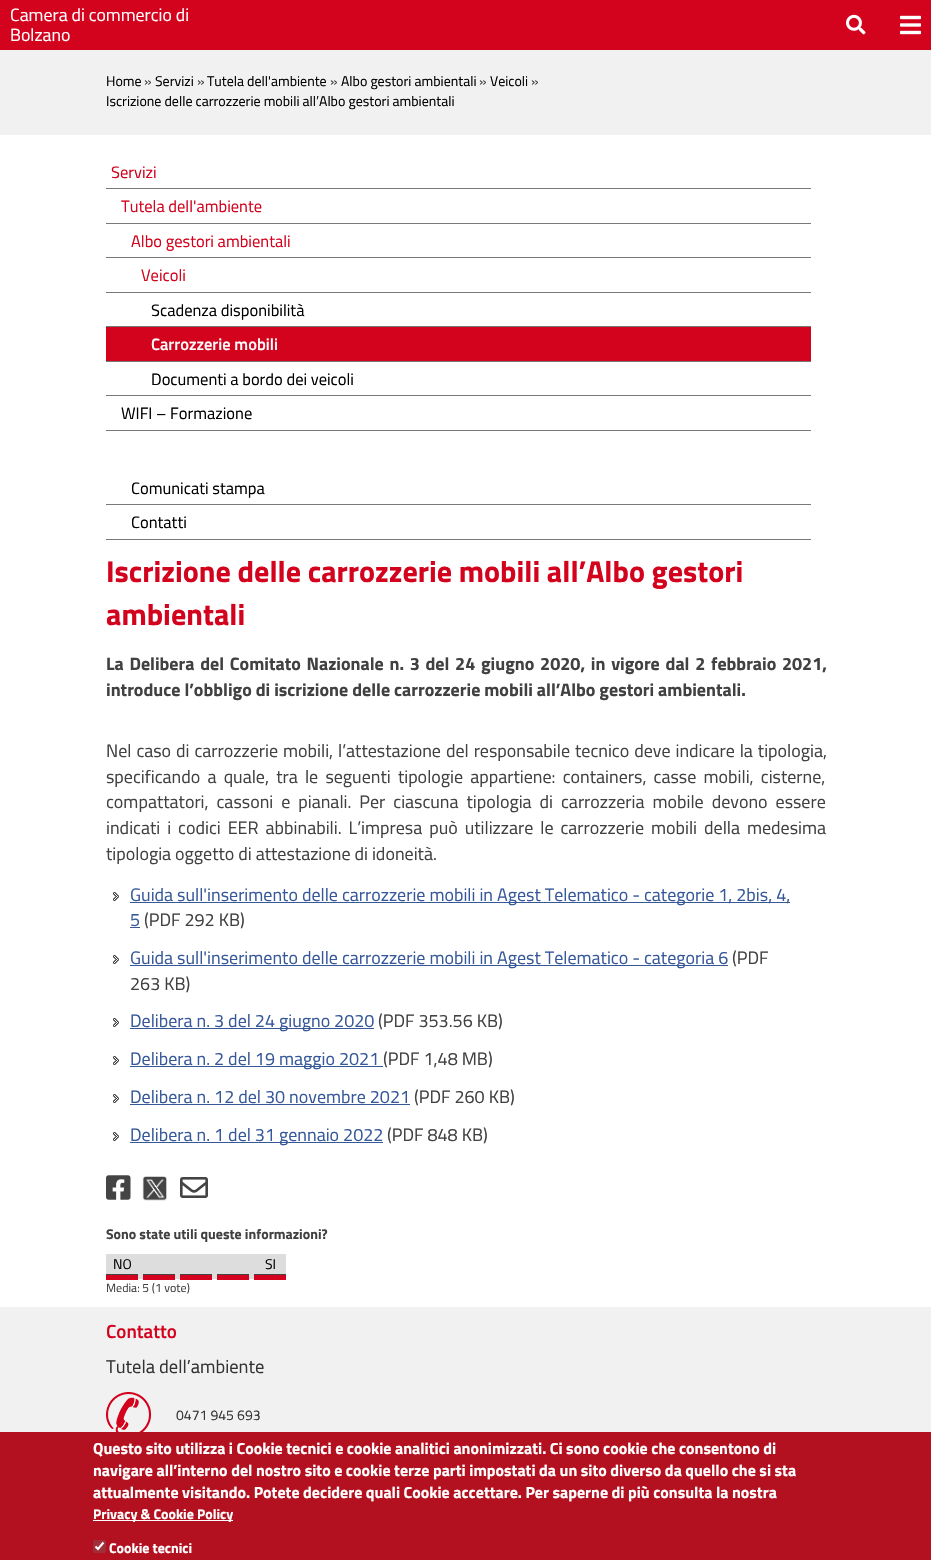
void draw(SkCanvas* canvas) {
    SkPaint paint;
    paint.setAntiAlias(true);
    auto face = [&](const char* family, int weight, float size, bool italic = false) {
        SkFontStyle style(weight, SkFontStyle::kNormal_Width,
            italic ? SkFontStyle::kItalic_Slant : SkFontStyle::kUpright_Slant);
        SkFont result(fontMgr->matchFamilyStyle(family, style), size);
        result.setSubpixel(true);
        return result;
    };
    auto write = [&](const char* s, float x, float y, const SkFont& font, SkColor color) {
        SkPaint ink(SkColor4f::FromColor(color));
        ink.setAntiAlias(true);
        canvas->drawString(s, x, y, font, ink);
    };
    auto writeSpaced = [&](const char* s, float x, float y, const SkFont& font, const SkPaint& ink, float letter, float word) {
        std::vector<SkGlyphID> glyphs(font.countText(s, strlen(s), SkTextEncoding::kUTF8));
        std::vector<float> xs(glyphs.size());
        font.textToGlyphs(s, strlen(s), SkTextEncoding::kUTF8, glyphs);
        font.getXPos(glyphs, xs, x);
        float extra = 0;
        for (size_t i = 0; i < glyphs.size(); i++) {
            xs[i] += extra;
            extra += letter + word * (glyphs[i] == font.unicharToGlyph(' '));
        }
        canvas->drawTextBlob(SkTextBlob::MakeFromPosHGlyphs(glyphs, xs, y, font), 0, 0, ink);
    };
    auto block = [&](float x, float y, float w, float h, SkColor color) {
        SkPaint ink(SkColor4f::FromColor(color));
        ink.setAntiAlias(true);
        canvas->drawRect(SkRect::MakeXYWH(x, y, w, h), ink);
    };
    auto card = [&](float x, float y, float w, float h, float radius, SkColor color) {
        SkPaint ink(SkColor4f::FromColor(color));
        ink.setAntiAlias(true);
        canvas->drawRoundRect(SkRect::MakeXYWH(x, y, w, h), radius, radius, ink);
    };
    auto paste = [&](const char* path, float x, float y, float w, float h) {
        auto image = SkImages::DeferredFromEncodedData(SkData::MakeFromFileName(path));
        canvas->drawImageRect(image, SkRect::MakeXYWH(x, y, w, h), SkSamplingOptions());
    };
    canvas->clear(SK_ColorWHITE);
    block(0, 0, 931, 50, SkColorSetRGB(211, 2, 29));
    auto kFont1 = face("Titillium Web", 400, 17.8f);
    write("Camera di commercio di", 10, 21, kFont1, SK_ColorWHITE);
    write("Bolzano", 10, 41, kFont1, SK_ColorWHITE);
    paste("pic1.png", 846, 14, 20, 21);
    paste("pic2.png", 900, 15, 21, 20);
    block(0, 50, 931, 85, SkColorSetRGB(241, 241, 241));
    auto kFont2 = face("Titillium Web", 400, 14);
    write("Home", 106, 86, kFont2, SK_ColorBLACK);
    write("»", 144, 86, kFont2, SkColorSetRGB(65, 65, 65));
    write("Servizi", 155, 86, kFont2, SK_ColorBLACK);
    write("»", 197, 86, kFont2, SkColorSetRGB(65, 65, 65));
    write("Tutela dell'ambiente", 207, 86, kFont2, SK_ColorBLACK);
    write("»", 330, 86, kFont2, SkColorSetRGB(65, 65, 65));
    write("Albo gestori ambientali", 341, 86, kFont2, SK_ColorBLACK);
    write("»", 479, 86, kFont2, SkColorSetRGB(65, 65, 65));
    write("Veicoli", 490, 86, kFont2, SK_ColorBLACK);
    write("»", 531, 86, kFont2, SkColorSetRGB(65, 65, 65));
    write("Iscrizione delle carrozzerie mobili all’Albo gestori ambientali", 106, 106, kFont2, SK_ColorBLACK);
    block(106, 188, 705, 1, SkColorSetRGB(120, 120, 120));
    auto kFont3 = face("Titillium Web", 400, 16.5f);
    write("Servizi", 111, 178, kFont3, SkColorSetRGB(211, 2, 29));
    block(106, 223, 705, 1, SkColorSetRGB(120, 120, 120));
    write("Tutela dell'ambiente", 121, 212, kFont3, SkColorSetRGB(211, 2, 29));
    block(106, 257, 705, 1, SkColorSetRGB(120, 120, 120));
    write("Albo gestori ambientali", 131, 247, kFont3, SkColorSetRGB(211, 2, 29));
    block(106, 292, 705, 1, SkColorSetRGB(120, 120, 120));
    write("Veicoli", 141, 281, kFont3, SkColorSetRGB(211, 2, 29));
    block(106, 326, 705, 1, SkColorSetRGB(120, 120, 120));
    write("Scadenza disponibilità", 151, 316, kFont3, SK_ColorBLACK);
    block(106, 327, 705, 34, SkColorSetRGB(211, 2, 29));
    block(106, 361, 705, 1, SkColorSetRGB(120, 120, 120));
    auto kFont4 = face("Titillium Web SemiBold", 600, 16.5f);
    write("Carrozzerie mobili", 151, 350, kFont4, SK_ColorWHITE);
    block(106, 395, 705, 1, SkColorSetRGB(120, 120, 120));
    write("Documenti a bordo dei veicoli", 151, 385, kFont3, SK_ColorBLACK);
    block(106, 430, 705, 1, SkColorSetRGB(120, 120, 120));
    write("WIFI – Formazione", 121, 419, kFont3, SK_ColorBLACK);
    block(106, 504, 705, 1, SkColorSetRGB(120, 120, 120));
    write("Comunicati stampa", 131, 494, kFont3, SK_ColorBLACK);
    block(106, 539, 705, 1, SkColorSetRGB(120, 120, 120));
    write("Contatti", 131, 528, kFont3, SK_ColorBLACK);
    auto kFont5 = face("Titillium Web", 700, 30.15f);
    write("Iscrizione delle carrozzerie mobili all’Albo gestori", 106, 582, kFont5, SkColorSetRGB(211, 2, 29));
    write("ambientali", 106, 625, kFont5, SkColorSetRGB(211, 2, 29));
    auto kFont6 = face("Titillium Web", 700, 18);
    paint.setColor(SkColorSetRGB(65, 65, 65));
    writeSpaced("La Delibera del Comitato Nazionale n. 3 del 24 giugno 2020, in vigore dal 2 febbraio 2021,", 106, 670, kFont6, paint, 0, 1.75f);
    write("introduce l’obbligo di iscrizione delle carrozzerie mobili all’Albo gestori ambientali.", 106, 696, kFont6, SkColorSetRGB(65, 65, 65));
    auto kFont7 = face("Titillium Web", 400, 18);
    writeSpaced("Nel caso di carrozzerie mobili, l’attestazione del responsabile tecnico deve indicare la tipologia,", 106, 757, kFont7, paint, 0, 1);
    writeSpaced("specificando a quale, tra le seguenti tipologie appartiene: containers, casse mobili, cisterne,", 106, 783, kFont7, paint, 0, 3.25f);
    writeSpaced("compattatori, cassoni e pianali. Per ciascuna tipologia di carrozzeria mobile devono essere", 106, 808, kFont7, paint, 0, 4);
    writeSpaced("indicati i codici EER abbinabili. L’impresa può utilizzare le carrozzerie mobili della medesima", 106, 834, kFont7, paint, 0, 3);
    write("tipologia oggetto di attestazione di idoneità.", 106, 860, kFont7, SkColorSetRGB(65, 65, 65));
    paste("pic3.png", 113, 892, 6, 9);
    block(130, 902, 660, 1, SkColorSetRGB(54, 88, 153));
    write("Guida sull'inserimento delle carrozzerie mobili in Agest Telematico - categorie 1, 2bis, 4,", 130, 901, kFont7, SkColorSetRGB(54, 88, 153));
    write("5", 130, 926, kFont7, SkColorSetRGB(54, 88, 153));
    block(130, 927, 10, 1, SkColorSetRGB(54, 88, 153));
    write("(PDF 292 KB)", 144, 926, kFont7, SkColorSetRGB(65, 65, 65));
    paste("pic3.png", 113, 955, 6, 9);
    block(130, 965, 598, 1, SkColorSetRGB(54, 88, 153));
    write("Guida sull'inserimento delle carrozzerie mobili in Agest Telematico - categoria 6", 130, 964, kFont7, SkColorSetRGB(54, 88, 153));
    write("(PDF", 732, 964, kFont7, SkColorSetRGB(65, 65, 65));
    write("263 KB)", 130, 990, kFont7, SkColorSetRGB(65, 65, 65));
    paste("pic3.png", 113, 1018, 6, 9);
    block(130, 1028, 244, 1, SkColorSetRGB(54, 88, 153));
    write("Delibera n. 3 del 24 giugno 2020", 130, 1027, kFont7, SkColorSetRGB(54, 88, 153));
    write("(PDF 353.56 KB)", 378, 1027, kFont7, SkColorSetRGB(65, 65, 65));
    paste("pic3.png", 113, 1056, 6, 9);
    block(130, 1066, 253, 1, SkColorSetRGB(54, 88, 153));
    write("Delibera n. 2 del 19 maggio 2021", 130, 1065, kFont7, SkColorSetRGB(54, 88, 153));
    write("(PDF 1,48 MB)", 383, 1065, kFont7, SkColorSetRGB(65, 65, 65));
    paste("pic3.png", 113, 1094, 6, 9);
    write("Delibera n. 12 del 30 novembre 2021", 130, 1103, kFont7, SkColorSetRGB(54, 88, 153));
    block(130, 1104, 280, 1, SkColorSetRGB(54, 88, 153));
    write("(PDF 260 KB)", 414, 1103, kFont7, SkColorSetRGB(65, 65, 65));
    paste("pic3.png", 113, 1132, 6, 9);
    block(130, 1142, 253, 1, SkColorSetRGB(54, 88, 153));
    write("Delibera n. 1 del 31 gennaio 2022", 130, 1141, kFont7, SkColorSetRGB(54, 88, 153));
    write("(PDF 848 KB)", 387, 1141, kFont7, SkColorSetRGB(65, 65, 65));
    paste("pic4.png", 106, 1175, 25, 25);
    paste("pic5.png", 142, 1176, 25, 25);
    paste("pic6.png", 180, 1177, 28, 21);
    auto kFont8 = face("Titillium Web", 700, 14);
    write("Sono state utili queste informazioni?", 106, 1239, kFont8, SkColorSetRGB(65, 65, 65));
    block(106, 1254, 180, 25, SkColorSetRGB(221, 221, 221));
    write("NO", 113, 1269, kFont2, SK_ColorBLACK);
    write("SI", 265, 1269, kFont2, SK_ColorBLACK);
    block(106, 1274, 32, 1, SkColorSetRGB(68, 68, 68));
    block(106, 1275, 32, 5, SkColorSetRGB(212, 2, 31));
    block(143, 1274, 32, 1, SkColorSetRGB(68, 68, 68));
    block(143, 1275, 32, 5, SkColorSetRGB(212, 2, 31));
    block(180, 1274, 32, 1, SkColorSetRGB(68, 68, 68));
    block(180, 1275, 32, 5, SkColorSetRGB(212, 2, 31));
    block(217, 1274, 32, 1, SkColorSetRGB(68, 68, 68));
    block(217, 1275, 32, 5, SkColorSetRGB(212, 2, 31));
    block(254, 1274, 32, 1, SkColorSetRGB(68, 68, 68));
    block(254, 1275, 32, 5, SkColorSetRGB(212, 2, 31));
    auto kFont9 = face("Titillium Web", 400, 12);
    write("Media: 5 (1 vote)", 106, 1292, kFont9, SkColorSetRGB(65, 65, 65));
    block(0, 1307, 931, 125, SkColorSetRGB(241, 241, 241));
    auto kFont10 = face("Titillium Web SemiBold", 600, 19);
    write("Contatto", 106, 1338, kFont10, SkColorSetRGB(211, 2, 29));
    auto kFont11 = face("Titillium Web", 400, 18.5f);
    write("Tutela dell’ambiente", 106, 1373, kFont11, SkColorSetRGB(51, 51, 51));
    paste("pic7.png", 106, 1392, 45, 40);
    write("0471 945 693", 176, 1420, kFont2, SkColorSetRGB(51, 51, 51));
    block(0, 1432, 931, 128, SkColorSetRGB(179, 17, 32));
    auto kFont12 = face("Titillium Web", 700, 16);
    write("Questo sito utilizza i Cookie tecnici e cookie analitici anonimizzati. Ci sono cookie che consentono di", 93, 1454, kFont12, SK_ColorWHITE);
    write("navigare all’interno del nostro sito e cookie terze parti impostati da un sito diverso da quello che si sta", 93, 1476, kFont12, SK_ColorWHITE);
    write("attualmente visitando. Potete decidere quali Cookie accettare. Per saperne di più consulta la nostra", 93, 1498, kFont12, SK_ColorWHITE);
    block(93, 1520, 140, 1, SK_ColorWHITE);
    write("Privacy & Cookie Policy", 93, 1519, kFont8, SK_ColorWHITE);
    card(93, 1540, 13, 13, 2, SkColorSetRGB(161, 47, 58));
    paint.setStyle(SkPaint::kStroke_Style);
    paint.setStrokeWidth(2.1f);
    paint.setColor(SK_ColorWHITE);
    canvas->drawPath(SkPathBuilder().moveTo(95.5f, 1546.5f).lineTo(98, 1549).lineTo(103.5f, 1542.5f).detach(), paint);
    write("Cookie tecnici", 109, 1553, kFont8, SK_ColorWHITE);
}
